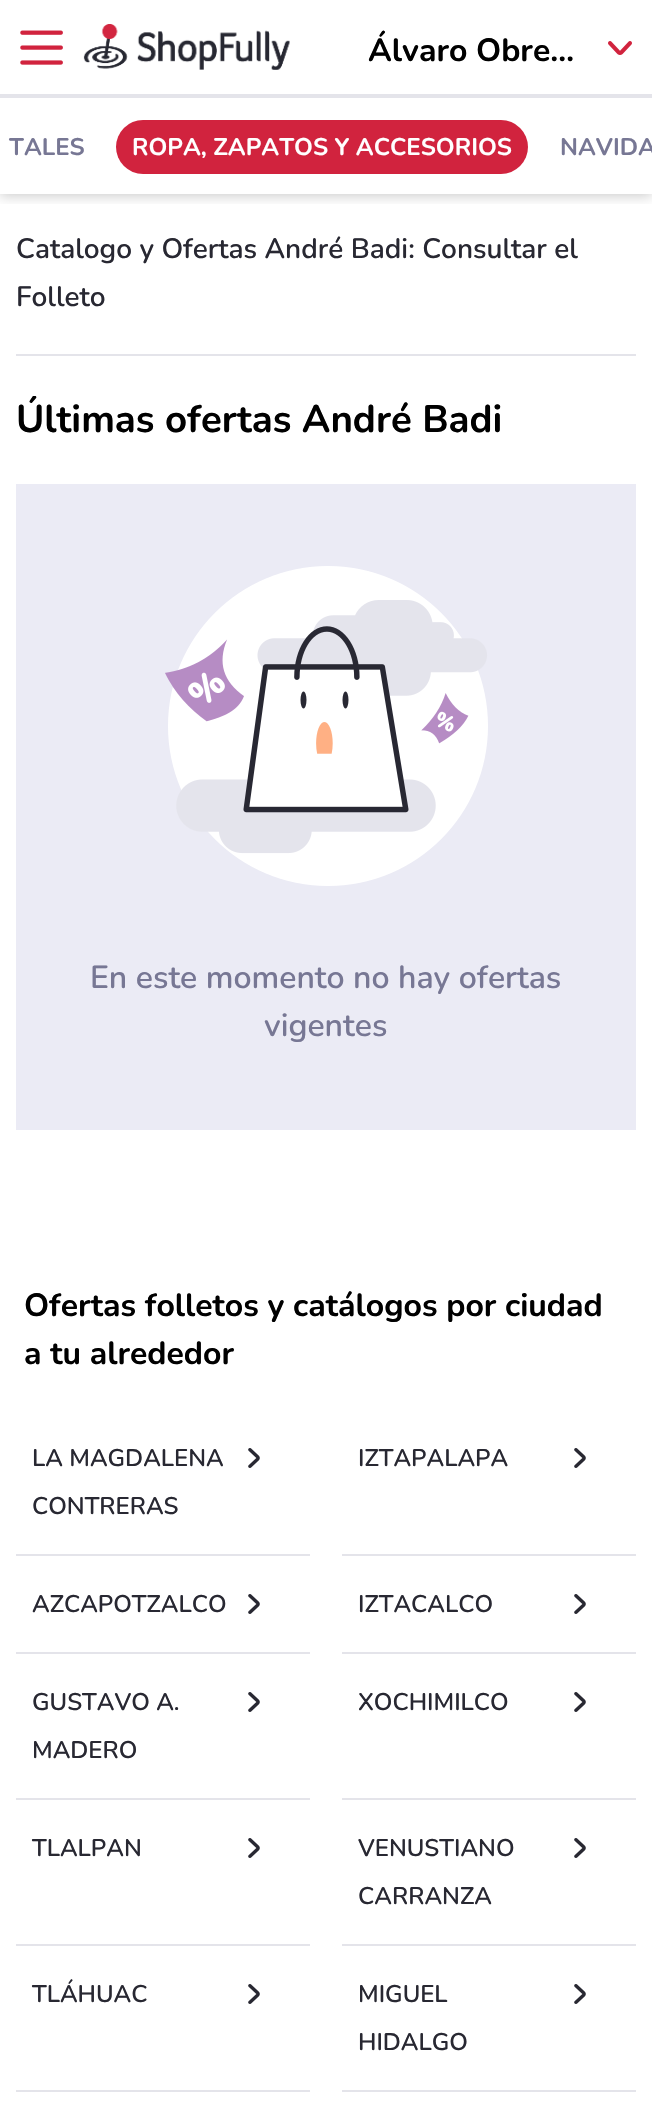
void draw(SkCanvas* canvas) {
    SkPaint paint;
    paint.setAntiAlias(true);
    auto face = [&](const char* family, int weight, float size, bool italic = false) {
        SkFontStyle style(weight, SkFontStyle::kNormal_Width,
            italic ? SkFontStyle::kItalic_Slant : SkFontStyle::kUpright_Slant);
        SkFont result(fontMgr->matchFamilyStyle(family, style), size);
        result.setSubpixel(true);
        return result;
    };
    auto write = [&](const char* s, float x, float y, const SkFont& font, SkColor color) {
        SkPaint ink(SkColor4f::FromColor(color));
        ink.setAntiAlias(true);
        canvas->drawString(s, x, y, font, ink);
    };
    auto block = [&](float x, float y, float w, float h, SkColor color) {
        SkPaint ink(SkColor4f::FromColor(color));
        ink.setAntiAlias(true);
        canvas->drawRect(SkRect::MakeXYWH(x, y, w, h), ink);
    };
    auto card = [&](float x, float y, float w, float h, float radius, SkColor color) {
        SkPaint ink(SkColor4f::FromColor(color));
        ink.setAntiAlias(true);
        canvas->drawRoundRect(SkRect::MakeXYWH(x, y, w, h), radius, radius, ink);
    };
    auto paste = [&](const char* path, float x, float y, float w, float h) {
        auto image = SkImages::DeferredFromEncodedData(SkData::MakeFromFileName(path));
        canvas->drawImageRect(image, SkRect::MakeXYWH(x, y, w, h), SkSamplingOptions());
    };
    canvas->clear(SK_ColorWHITE);
    canvas->save();
    canvas->clipRect(SkRect::MakeXYWH(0, 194, 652, 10));
    paint.setColor(SkColorSetARGB(51, 0, 0, 0));
    paint.setMaskFilter(SkMaskFilter::MakeBlur(kNormal_SkBlurStyle, 6));
    canvas->drawRect(SkRect::MakeXYWH(0, 2, 652, 194), paint);
    paint.setMaskFilter(nullptr);
    canvas->restore();
    paste("pic1.png", 20, 30, 43, 35);
    paste("pic2.png", 83, 24, 207, 46);
    auto kFont1 = face("Nunito", 700, 32);
    write("Álvaro Obre…", 368, 61, kFont1, SK_ColorBLACK);
    paste("pic3.png", 608, 41, 24, 14);
    block(0, 94, 652, 4, SkColorSetRGB(228, 228, 234));
    auto kFont2 = face("Nunito", 700, 24);
    write("TALES", 9, 155, kFont2, SkColorSetRGB(119, 119, 148));
    card(116, 120, 412, 54, 27, SkColorSetRGB(209, 35, 62));
    write("ROPA, ZAPATOS Y ACCESORIOS", 132, 155, kFont2, SK_ColorWHITE);
    write("NAVIDA", 560, 155, kFont2, SkColorSetRGB(119, 119, 148));
    block(16, 354, 620, 2, SkColorSetRGB(228, 228, 234));
    auto kFont3 = face("Nunito", 600, 28);
    write("Catalogo y Ofertas André Badi: Consultar el", 16, 258, kFont3, SkColorSetRGB(40, 40, 50));
    write("Folleto", 16, 306, kFont3, SkColorSetRGB(40, 40, 50));
    canvas->save();
    canvas->clipRect(SkRect::MakeXYWH(16, 396, 486, 48));
    auto kFont4 = face("Nunito", 700, 38.4f);
    write("Últimas ofertas André Badi", 16, 432, kFont4, SK_ColorBLACK);
    canvas->restore();
    block(16, 484, 620, 646, SkColorSetRGB(235, 235, 245));
    paste("pic4.png", 165, 566, 323, 320);
    auto kFont5 = face("Nunito", 600, 32);
    write("En este momento no hay ofertas", 90, 988, kFont5, SkColorSetRGB(119, 119, 148));
    write("vigentes", 264, 1036, kFont5, SkColorSetRGB(119, 119, 148));
    write("Ofertas folletos y catálogos por ciudad", 24, 1316, kFont1, SK_ColorBLACK);
    write("a tu alrededor", 24, 1364, kFont1, SK_ColorBLACK);
    block(16, 1554, 294, 2, SkColorSetRGB(228, 228, 234));
    auto kFont6 = face("Nunito", 600, 24);
    write("LA MAGDALENA", 32, 1466, kFont6, SkColorSetRGB(40, 40, 50));
    write("CONTRERAS", 32, 1514, kFont6, SkColorSetRGB(40, 40, 50));
    paste("pic5.png", 248, 1448, 12, 20);
    block(342, 1554, 294, 2, SkColorSetRGB(228, 228, 234));
    write("IZTAPALAPA", 358, 1466, kFont6, SkColorSetRGB(40, 40, 50));
    paste("pic5.png", 574, 1448, 12, 20);
    block(16, 1652, 294, 2, SkColorSetRGB(228, 228, 234));
    write("AZCAPOTZALCO", 32, 1612, kFont6, SkColorSetRGB(40, 40, 50));
    paste("pic5.png", 248, 1594, 12, 20);
    block(342, 1652, 294, 2, SkColorSetRGB(228, 228, 234));
    write("IZTACALCO", 358, 1612, kFont6, SkColorSetRGB(40, 40, 50));
    paste("pic5.png", 574, 1594, 12, 20);
    block(16, 1798, 294, 2, SkColorSetRGB(228, 228, 234));
    write("GUSTAVO A.", 32, 1710, kFont6, SkColorSetRGB(40, 40, 50));
    write("MADERO", 32, 1758, kFont6, SkColorSetRGB(40, 40, 50));
    paste("pic5.png", 248, 1692, 12, 20);
    block(342, 1798, 294, 2, SkColorSetRGB(228, 228, 234));
    write("XOCHIMILCO", 358, 1710, kFont6, SkColorSetRGB(40, 40, 50));
    paste("pic5.png", 574, 1692, 12, 20);
    block(16, 1944, 294, 2, SkColorSetRGB(228, 228, 234));
    write("TLALPAN", 32, 1856, kFont6, SkColorSetRGB(40, 40, 50));
    paste("pic5.png", 248, 1838, 12, 20);
    block(342, 1944, 294, 2, SkColorSetRGB(228, 228, 234));
    write("VENUSTIANO", 358, 1856, kFont6, SkColorSetRGB(40, 40, 50));
    write("CARRANZA", 358, 1904, kFont6, SkColorSetRGB(40, 40, 50));
    paste("pic5.png", 574, 1838, 12, 20);
    block(16, 2090, 294, 2, SkColorSetRGB(228, 228, 234));
    write("TLÁHUAC", 32, 2002, kFont6, SkColorSetRGB(40, 40, 50));
    paste("pic5.png", 248, 1984, 12, 20);
    block(342, 2090, 294, 2, SkColorSetRGB(228, 228, 234));
    write("MIGUEL", 358, 2002, kFont6, SkColorSetRGB(40, 40, 50));
    write("HIDALGO", 358, 2050, kFont6, SkColorSetRGB(40, 40, 50));
    paste("pic5.png", 574, 1984, 12, 20);
}
